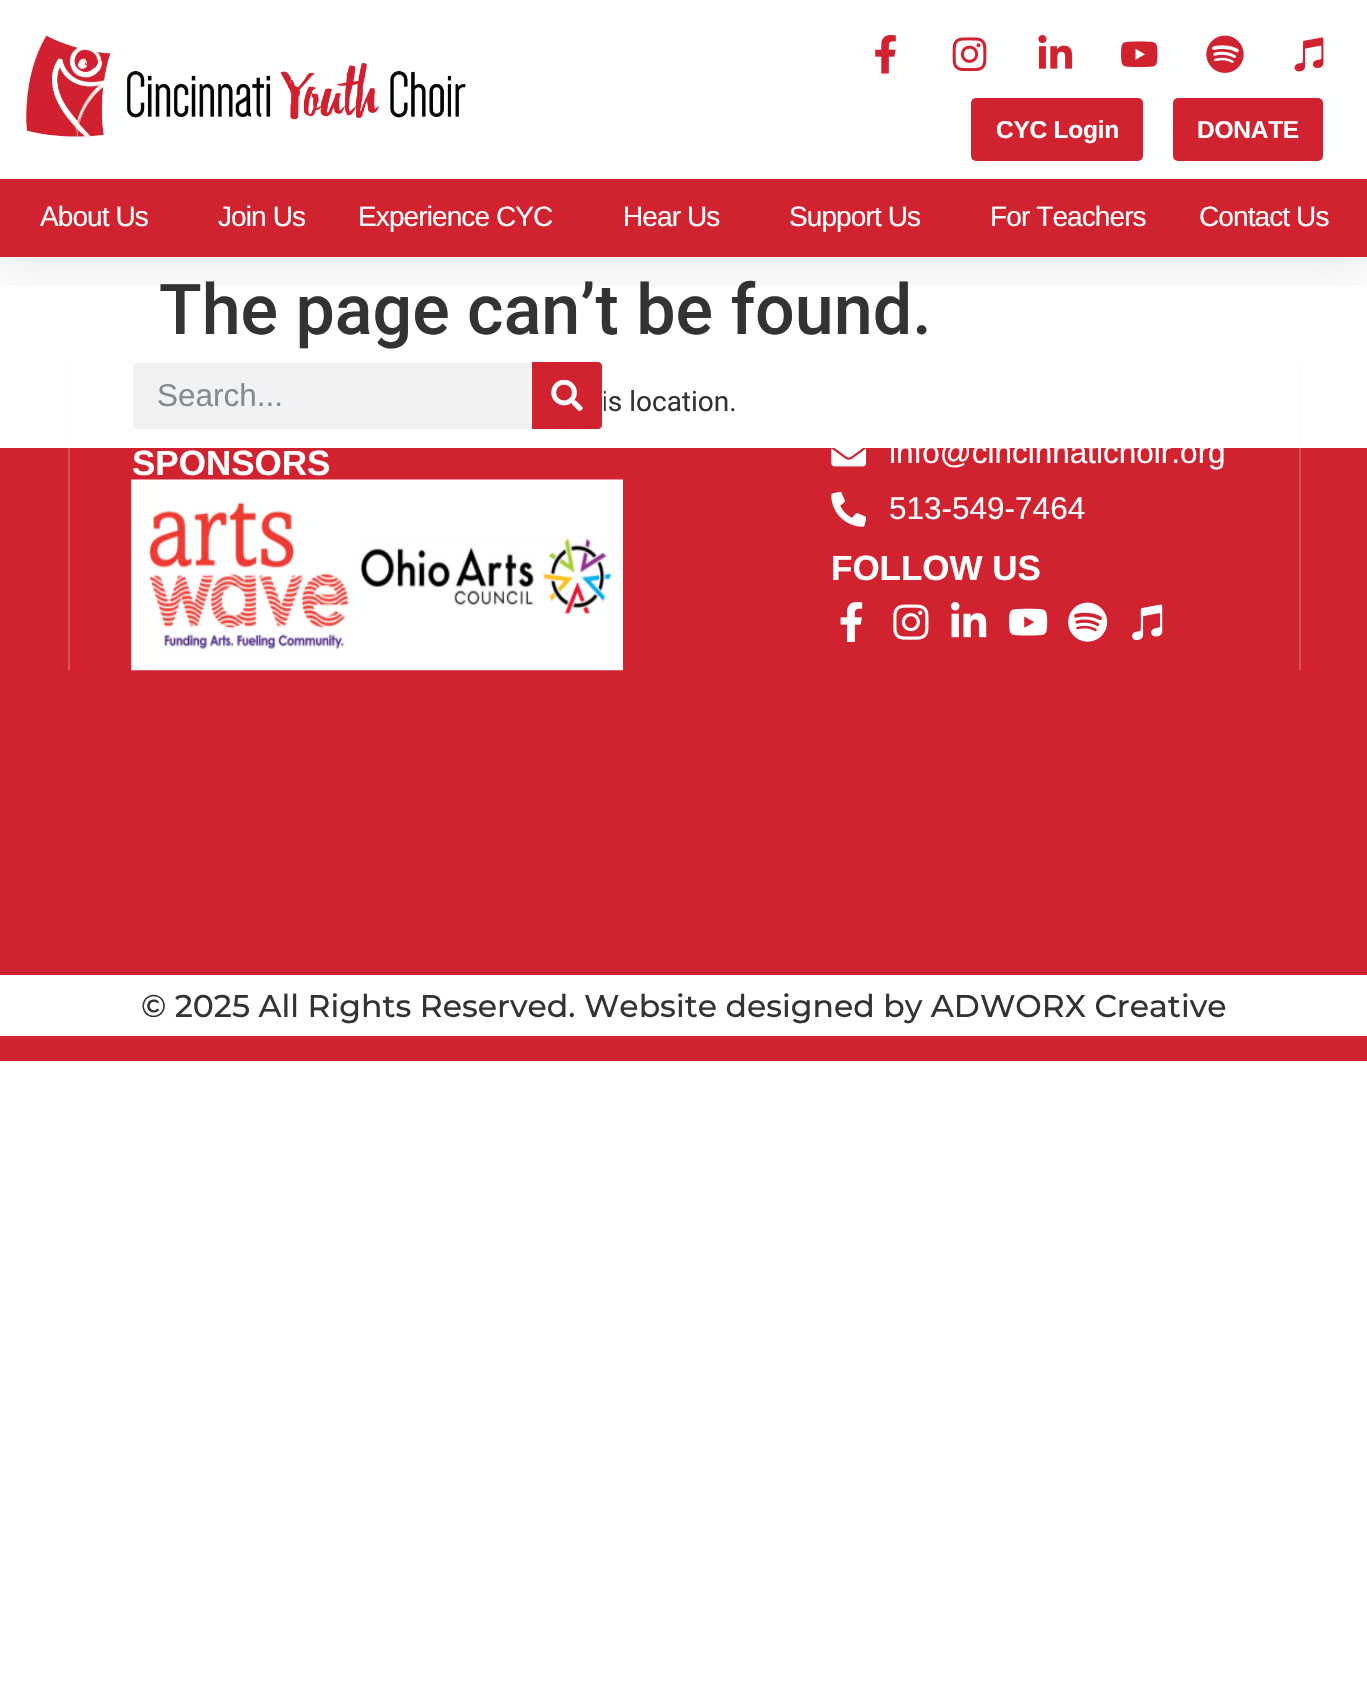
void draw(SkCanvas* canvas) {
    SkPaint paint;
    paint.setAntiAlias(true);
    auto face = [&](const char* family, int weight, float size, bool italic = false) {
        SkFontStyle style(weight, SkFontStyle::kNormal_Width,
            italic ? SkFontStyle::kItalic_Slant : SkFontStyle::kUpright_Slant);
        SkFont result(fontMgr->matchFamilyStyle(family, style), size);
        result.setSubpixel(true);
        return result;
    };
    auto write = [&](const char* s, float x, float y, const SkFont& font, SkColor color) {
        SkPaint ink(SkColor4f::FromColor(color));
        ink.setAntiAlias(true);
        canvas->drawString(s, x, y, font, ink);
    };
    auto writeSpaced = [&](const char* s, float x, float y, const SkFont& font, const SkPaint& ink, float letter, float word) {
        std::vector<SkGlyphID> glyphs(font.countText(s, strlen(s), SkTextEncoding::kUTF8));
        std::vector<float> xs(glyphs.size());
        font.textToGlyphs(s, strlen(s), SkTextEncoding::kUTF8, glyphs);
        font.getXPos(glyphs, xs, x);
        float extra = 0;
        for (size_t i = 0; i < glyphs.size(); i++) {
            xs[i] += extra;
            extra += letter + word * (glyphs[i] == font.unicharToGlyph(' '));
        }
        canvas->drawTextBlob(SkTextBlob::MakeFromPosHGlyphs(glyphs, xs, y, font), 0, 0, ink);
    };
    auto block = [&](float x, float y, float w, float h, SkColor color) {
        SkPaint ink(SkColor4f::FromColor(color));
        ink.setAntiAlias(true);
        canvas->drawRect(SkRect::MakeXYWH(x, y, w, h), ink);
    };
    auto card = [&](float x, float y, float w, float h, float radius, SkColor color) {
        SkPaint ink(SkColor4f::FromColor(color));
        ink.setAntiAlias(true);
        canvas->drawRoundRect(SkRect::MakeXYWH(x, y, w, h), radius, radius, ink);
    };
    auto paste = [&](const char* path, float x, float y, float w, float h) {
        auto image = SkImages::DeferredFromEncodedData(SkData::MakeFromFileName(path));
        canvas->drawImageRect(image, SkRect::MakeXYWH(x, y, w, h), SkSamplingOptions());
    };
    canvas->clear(SK_ColorWHITE);
    block(68, 361, 2, 87, SkColorSetRGB(255, 253, 252));
    block(1299, 361, 2, 87, SkColorSetRGB(255, 253, 252));
    canvas->save();
    canvas->clipRect(SkRect::MakeXYWH(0, 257, 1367, 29));
    paint.setColor(SkColorSetARGB(26, 0, 0, 0));
    paint.setMaskFilter(SkMaskFilter::MakeBlur(kNormal_SkBlurStyle, 26));
    canvas->drawRect(SkRect::MakeXYWH(0, 9, 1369, 255), paint);
    paint.setMaskFilter(nullptr);
    canvas->restore();
    paste("pic1.png", 26, 35, 440, 102);
    paste("pic2.png", 875, 35, 21, 39);
    paste("pic3.png", 952, 37, 35, 35);
    paste("pic4.png", 1038, 35, 35, 34);
    paste("pic5.png", 1121, 41, 37, 27);
    paste("pic6.png", 1206, 35, 38, 38);
    paste("pic7.png", 1294, 37, 30, 35);
    card(971, 98, 172, 63, 5, SkColorSetRGB(209, 34, 48));
    auto kFont1 = face("Liberation Sans", 700, 24.5f);
    paint.setColor(SK_ColorWHITE);
    writeSpaced("CYC Login", 996, 138, kFont1, paint, -0.25f, 0);
    card(1173, 98, 150, 63, 5, SkColorSetRGB(209, 34, 48));
    writeSpaced("DONATE", 1197, 138, kFont1, paint, -0.25f, 0);
    block(0, 179, 1367, 78, SkColorSetRGB(209, 34, 48));
    auto kFont2 = face("Liberation Sans", 400, 28);
    writeSpaced("About Us", 40, 226, kFont2, paint, -0.9f, 0);
    writeSpaced("Join Us", 218, 226, kFont2, paint, -0.9f, 0);
    writeSpaced("Experience CYC", 358, 226, kFont2, paint, -0.9f, 0);
    writeSpaced("Hear Us", 623, 226, kFont2, paint, -0.9f, 0);
    writeSpaced("Support Us", 789, 226, kFont2, paint, -0.9f, 0);
    writeSpaced("For Teachers", 990, 226, kFont2, paint, -0.9f, 0);
    writeSpaced("Contact Us", 1199, 226, kFont2, paint, -0.9f, 0);
    auto kFont3 = face("Roboto", 500, 70);
    write("The page can’t be found.", 159, 334, kFont3, SkColorSetRGB(51, 51, 51));
    auto kFont4 = face("Roboto", 400, 28);
    write("is location.", 601, 411, kFont4, SkColorSetRGB(51, 51, 51));
    block(0, 448, 1367, 613, SkColorSetRGB(209, 34, 48));
    block(68, 448, 2, 222, SkColorSetRGB(219, 81, 90));
    block(1299, 448, 2, 222, SkColorSetRGB(219, 81, 90));
    paint.setColor(SkColorSetRGB(241, 242, 243));
    canvas->drawRoundRect(SkRect::MakeXYWH(132, 362, 471, 68), 4, 4, paint);
    paint.setStyle(SkPaint::kStroke_Style);
    paint.setStrokeWidth(2);
    paint.setColor(SK_ColorWHITE);
    canvas->drawRoundRect(SkRect::MakeXYWH(132, 362, 471, 68), 4, 4, paint);
    auto kFont5 = face("Liberation Sans", 400, 31.5f);
    write("Search...", 157, 406, kFont5, SkColorSetRGB(134, 138, 142));
    paint.setStyle(SkPaint::kFill_Style);
    paint.setColor(SkColorSetRGB(209, 34, 48));
    canvas->drawPath(SkPathBuilder().moveTo(532, 362).lineTo(598, 362).cubicTo(600, 362, 602, 364, 602, 366).lineTo(602, 425).cubicTo(602, 427, 600, 429, 598, 429).lineTo(532, 429).close().detach(), paint);
    paste("pic8.png", 551, 380, 32, 31);
    auto kFont6 = face("Liberation Sans", 700, 35);
    write("SPONSORS", 132, 475, kFont6, SK_ColorWHITE);
    paste("pic9.png", 131, 479, 492, 192);
    paste("pic10.png", 831, 448, 35, 19);
    write("info@cincinnatichoir.org", 889, 463, kFont5, SK_ColorWHITE);
    paste("pic11.png", 831, 492, 35, 35);
    write("513-549-7464", 889, 519, kFont5, SK_ColorWHITE);
    write("FOLLOW US", 831, 580, kFont6, SK_ColorWHITE);
    paste("pic12.png", 840, 602, 23, 40);
    paste("pic13.png", 893, 604, 36, 36);
    paste("pic14.png", 951, 602, 36, 36);
    paste("pic15.png", 1009, 608, 39, 28);
    paste("pic16.png", 1068, 602, 40, 40);
    paste("pic17.png", 1132, 604, 31, 37);
    block(0, 975, 1367, 61, SK_ColorWHITE);
    auto kFont7 = face("Montserrat", 500, 31.5f);
    write("© 2025 All Rights Reserved. Website designed by ADWORX Creative", 141, 1017, kFont7, SkColorSetRGB(51, 51, 51));
}
